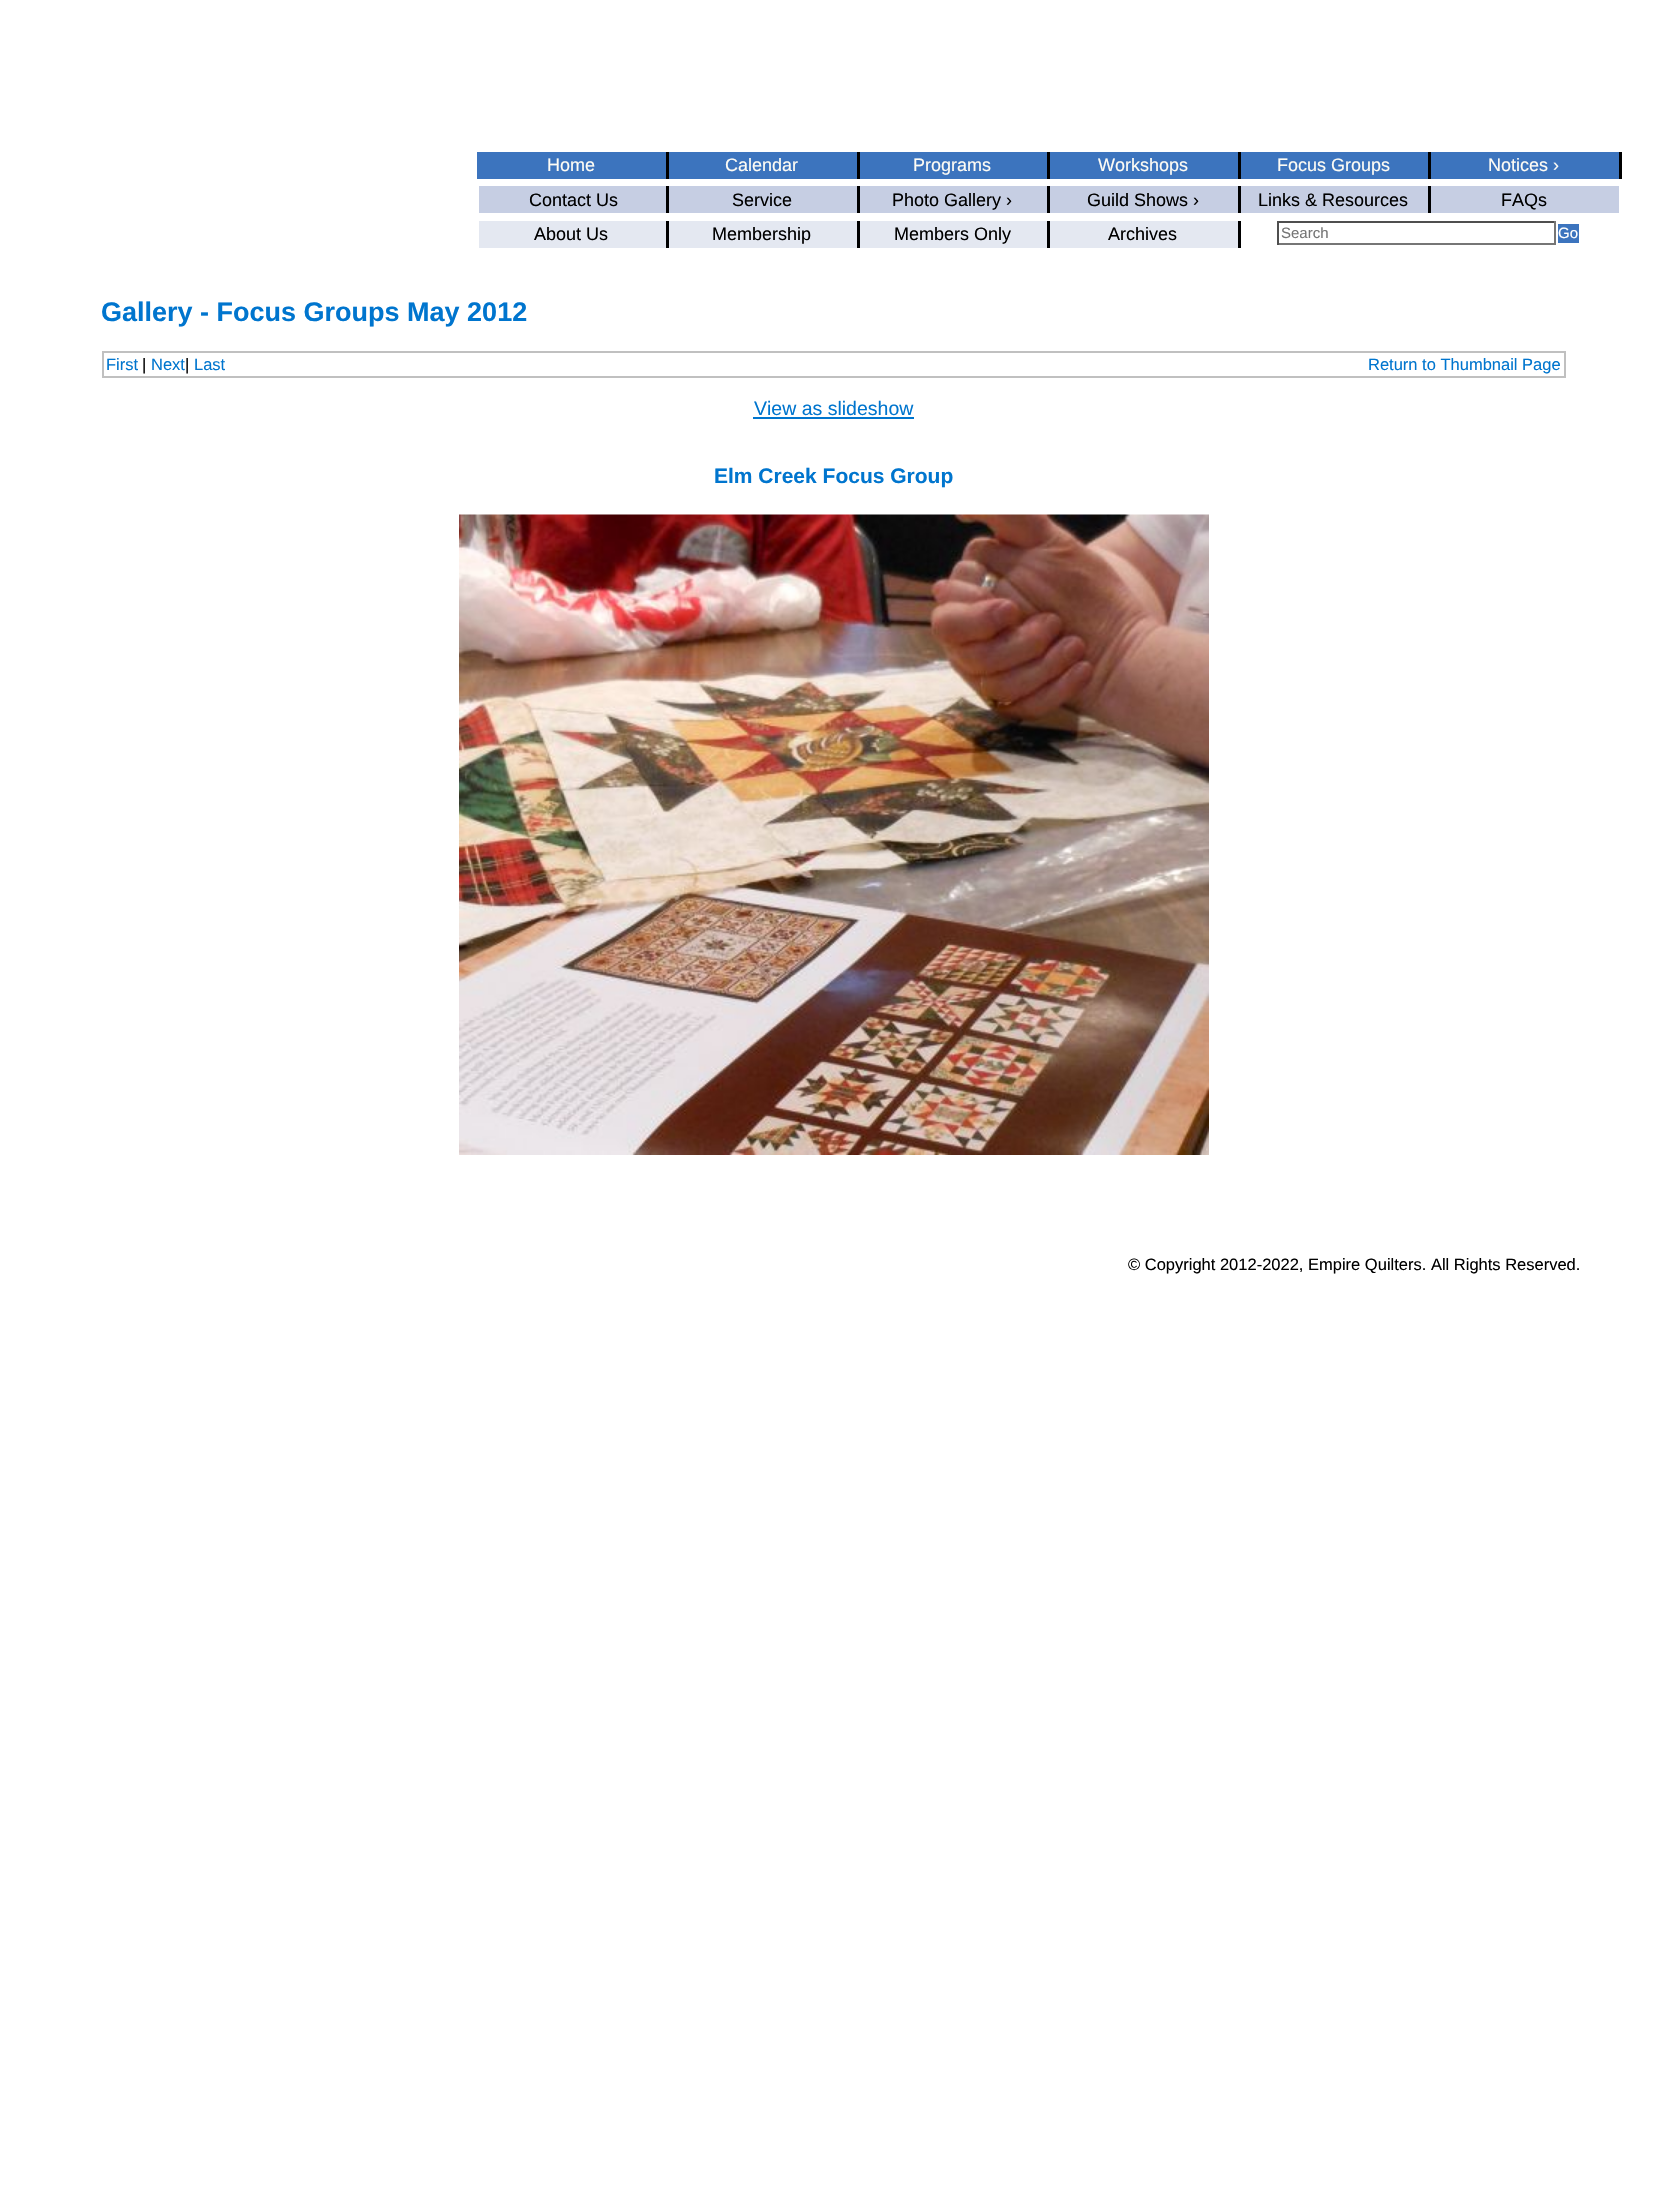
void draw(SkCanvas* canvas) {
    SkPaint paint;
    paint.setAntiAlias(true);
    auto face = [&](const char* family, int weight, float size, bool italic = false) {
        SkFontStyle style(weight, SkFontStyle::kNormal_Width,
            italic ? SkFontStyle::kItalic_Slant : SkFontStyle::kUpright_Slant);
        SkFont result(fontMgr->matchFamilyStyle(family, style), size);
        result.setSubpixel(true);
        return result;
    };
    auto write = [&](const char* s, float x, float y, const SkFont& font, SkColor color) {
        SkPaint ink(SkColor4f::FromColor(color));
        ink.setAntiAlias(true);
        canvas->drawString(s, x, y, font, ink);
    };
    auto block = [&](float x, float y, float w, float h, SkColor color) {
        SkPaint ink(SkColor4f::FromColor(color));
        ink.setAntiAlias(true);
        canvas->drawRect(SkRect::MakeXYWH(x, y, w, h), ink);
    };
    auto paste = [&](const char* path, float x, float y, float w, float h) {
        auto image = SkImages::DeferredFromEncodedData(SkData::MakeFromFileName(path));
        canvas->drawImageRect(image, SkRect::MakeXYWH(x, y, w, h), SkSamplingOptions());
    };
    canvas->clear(SK_ColorWHITE);
    block(477, 152, 189, 27, SkColorSetRGB(60, 116, 190));
    block(666, 152, 3, 27, SK_ColorBLACK);
    auto kFont1 = face("Liberation Sans", 400, 18);
    write("Home", 547, 171, kFont1, SkColorSetRGB(254, 252, 245));
    block(669, 152, 188, 27, SkColorSetRGB(60, 116, 190));
    block(857, 152, 3, 27, SK_ColorBLACK);
    write("Calendar", 725, 171, kFont1, SkColorSetRGB(254, 252, 245));
    block(860, 152, 187, 27, SkColorSetRGB(60, 116, 190));
    block(1047, 152, 3, 27, SK_ColorBLACK);
    write("Programs", 913, 171, kFont1, SkColorSetRGB(254, 252, 245));
    block(1050, 152, 188, 27, SkColorSetRGB(60, 116, 190));
    block(1238, 152, 3, 27, SK_ColorBLACK);
    write("Workshops", 1098, 171, kFont1, SkColorSetRGB(254, 252, 245));
    block(1241, 152, 187, 27, SkColorSetRGB(60, 116, 190));
    block(1428, 152, 3, 27, SK_ColorBLACK);
    write("Focus Groups", 1277, 171, kFont1, SkColorSetRGB(254, 252, 245));
    block(1431, 152, 188, 27, SkColorSetRGB(60, 116, 190));
    block(1619, 152, 3, 27, SK_ColorBLACK);
    write("Notices ›", 1488, 171, kFont1, SkColorSetRGB(254, 252, 245));
    block(479, 186, 187, 27, SkColorSetRGB(198, 206, 227));
    block(666, 186, 3, 27, SK_ColorBLACK);
    write("Contact Us", 529, 206, kFont1, SK_ColorBLACK);
    block(669, 186, 188, 27, SkColorSetRGB(198, 206, 227));
    block(857, 186, 3, 27, SK_ColorBLACK);
    write("Service", 732, 206, kFont1, SK_ColorBLACK);
    block(860, 186, 187, 27, SkColorSetRGB(198, 206, 227));
    block(1047, 186, 3, 27, SK_ColorBLACK);
    write("Photo Gallery ›", 892, 206, kFont1, SK_ColorBLACK);
    block(1050, 186, 188, 27, SkColorSetRGB(198, 206, 227));
    block(1238, 186, 3, 27, SK_ColorBLACK);
    write("Guild Shows ›", 1087, 206, kFont1, SK_ColorBLACK);
    block(1241, 186, 187, 27, SkColorSetRGB(198, 206, 227));
    block(1428, 186, 3, 27, SK_ColorBLACK);
    write("Links & Resources", 1258, 206, kFont1, SK_ColorBLACK);
    block(1431, 186, 188, 27, SkColorSetRGB(198, 206, 227));
    write("FAQs", 1501, 206, kFont1, SK_ColorBLACK);
    block(479, 221, 187, 27, SkColorSetRGB(228, 232, 241));
    block(666, 221, 3, 27, SK_ColorBLACK);
    write("About Us", 534, 240, kFont1, SK_ColorBLACK);
    block(669, 221, 188, 27, SkColorSetRGB(228, 232, 241));
    block(857, 221, 3, 27, SK_ColorBLACK);
    write("Membership", 712, 240, kFont1, SK_ColorBLACK);
    block(860, 221, 187, 27, SkColorSetRGB(228, 232, 241));
    block(1047, 221, 3, 27, SK_ColorBLACK);
    write("Members Only", 894, 240, kFont1, SK_ColorBLACK);
    block(1050, 221, 188, 27, SkColorSetRGB(228, 232, 241));
    block(1238, 221, 3, 27, SK_ColorBLACK);
    write("Archives", 1108, 240, kFont1, SK_ColorBLACK);
    block(1277, 221, 279, 2, SkColorSetRGB(79, 79, 79));
    block(1554, 221, 2, 24, SkColorSetRGB(118, 118, 118));
    block(1277, 243, 279, 2, SkColorSetRGB(118, 118, 118));
    block(1277, 221, 2, 24, SkColorSetRGB(79, 79, 79));
    auto kFont2 = face("Liberation Sans", 400, 15);
    write("Search", 1281, 238, kFont2, SkColorSetRGB(117, 117, 117));
    block(1558, 224, 21, 19, SkColorSetRGB(60, 116, 190));
    write("Go", 1558, 238, kFont2, SK_ColorWHITE);
    auto kFont3 = face("Liberation Sans", 700, 27);
    write("Gallery - Focus Groups May 2012", 101, 321, kFont3, SkColorSetRGB(0, 117, 206));
    paint.setStyle(SkPaint::kStroke_Style);
    paint.setStrokeWidth(2);
    paint.setColor(SkColorSetRGB(192, 192, 192));
    canvas->drawRect(SkRect::MakeXYWH(103, 352, 1462, 25), paint);
    auto kFont4 = face("Liberation Sans", 400, 16.5f);
    write("First", 106, 370, kFont4, SkColorSetRGB(0, 117, 206));
    write("|", 142, 370, kFont4, SK_ColorBLACK);
    write("Next", 151, 370, kFont4, SkColorSetRGB(0, 117, 206));
    write("|", 185, 370, kFont4, SK_ColorBLACK);
    write("Last", 194, 370, kFont4, SkColorSetRGB(0, 117, 206));
    write("Return to Thumbnail Page", 1368, 370, kFont4, SkColorSetRGB(0, 117, 206));
    auto kFont5 = face("Liberation Sans", 400, 19.5f);
    write("View as slideshow", 754, 415, kFont5, SkColorSetRGB(0, 117, 206));
    block(753, 417, 161, 2, SkColorSetRGB(0, 117, 206));
    auto kFont6 = face("Liberation Sans", 700, 21);
    write("Elm Creek Focus Group", 714, 483, kFont6, SkColorSetRGB(0, 117, 206));
    paste("pic1.png", 459, 514, 750, 641);
    write("© Copyright 2012-2022, Empire Quilters. All Rights Reserved.", 1128, 1270, kFont4, SK_ColorBLACK);
}
